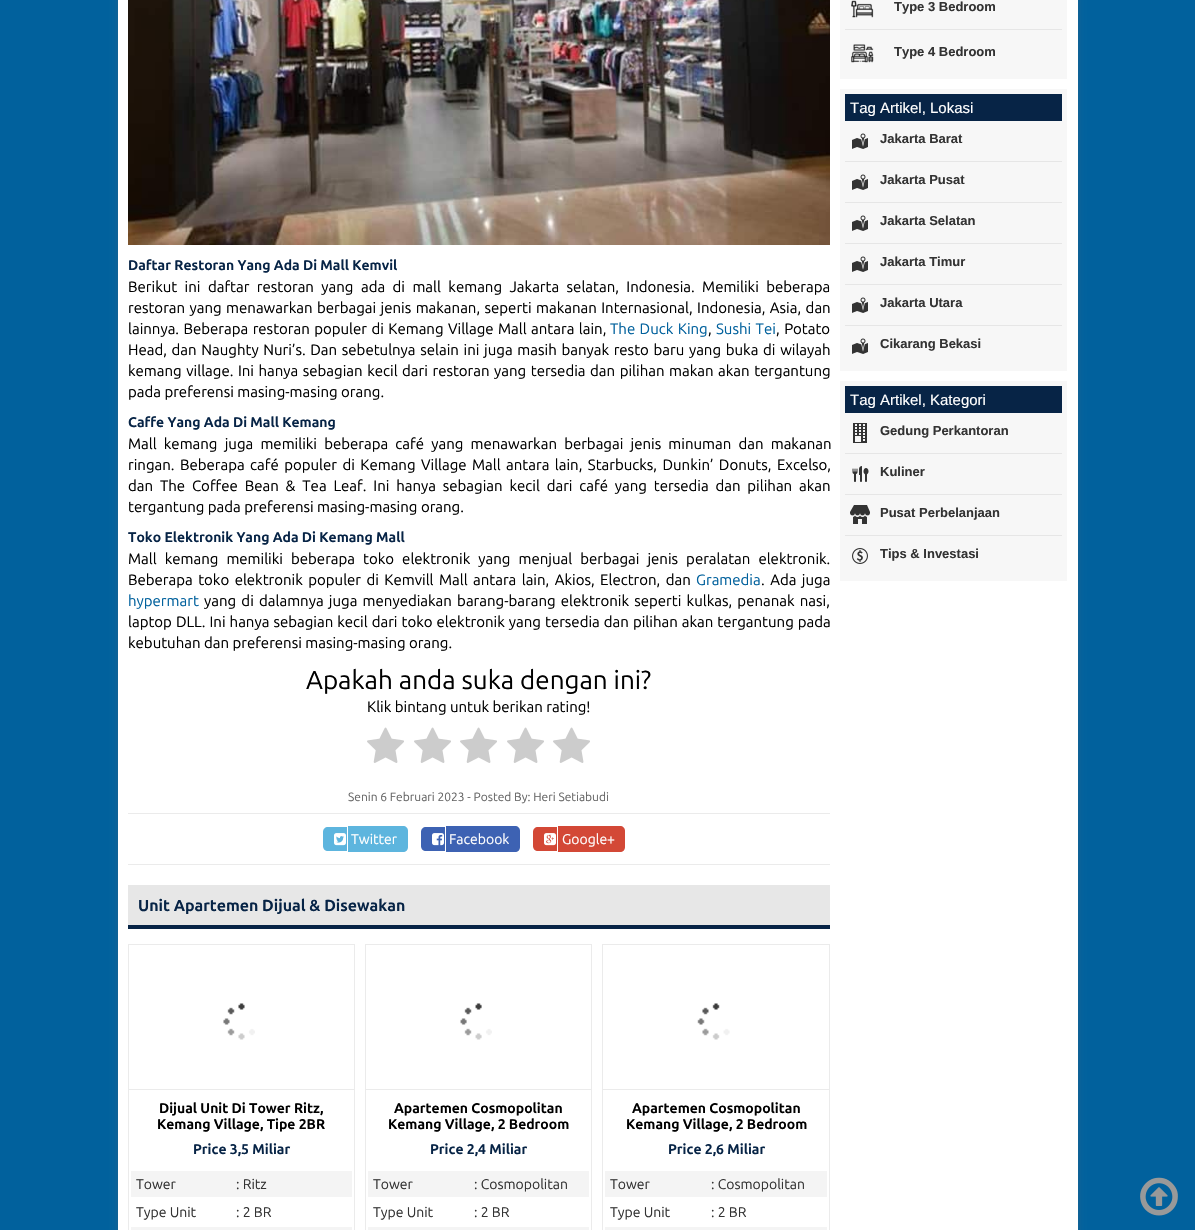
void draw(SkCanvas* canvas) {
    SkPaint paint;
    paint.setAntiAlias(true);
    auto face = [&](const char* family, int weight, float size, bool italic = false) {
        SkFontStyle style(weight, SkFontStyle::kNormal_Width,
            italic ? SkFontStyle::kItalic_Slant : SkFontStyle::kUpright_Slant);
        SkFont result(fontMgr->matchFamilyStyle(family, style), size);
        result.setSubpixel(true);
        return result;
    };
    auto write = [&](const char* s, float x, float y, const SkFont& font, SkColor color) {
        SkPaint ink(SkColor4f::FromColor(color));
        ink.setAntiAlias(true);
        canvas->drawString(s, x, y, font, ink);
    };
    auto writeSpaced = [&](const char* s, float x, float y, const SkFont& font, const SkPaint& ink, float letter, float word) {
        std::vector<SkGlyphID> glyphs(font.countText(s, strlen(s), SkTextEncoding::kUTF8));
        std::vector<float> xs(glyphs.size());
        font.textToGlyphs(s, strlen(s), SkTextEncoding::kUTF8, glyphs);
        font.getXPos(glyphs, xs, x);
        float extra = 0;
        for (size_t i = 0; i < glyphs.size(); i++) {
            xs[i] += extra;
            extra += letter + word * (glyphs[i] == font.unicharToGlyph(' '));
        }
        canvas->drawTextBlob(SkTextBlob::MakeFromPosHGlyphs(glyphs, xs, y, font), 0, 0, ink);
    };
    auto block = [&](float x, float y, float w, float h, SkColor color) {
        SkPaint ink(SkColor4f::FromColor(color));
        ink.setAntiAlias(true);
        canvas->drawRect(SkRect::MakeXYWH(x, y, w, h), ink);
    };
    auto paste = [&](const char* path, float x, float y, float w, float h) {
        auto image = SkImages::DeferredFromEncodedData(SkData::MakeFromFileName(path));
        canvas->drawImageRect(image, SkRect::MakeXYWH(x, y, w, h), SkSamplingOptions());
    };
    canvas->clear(SkColorSetRGB(1, 97, 157));
    paint.setColor(SkColorSetARGB(77, 100, 100, 100));
    paint.setMaskFilter(SkMaskFilter::MakeBlur(kNormal_SkBlurStyle, 3));
    canvas->drawRect(SkRect::MakeXYWH(118, -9, 960, 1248), paint);
    paint.setMaskFilter(nullptr);
    block(118, 0, 960, 1230, SK_ColorWHITE);
    paste("pic1.png", 128, 0, 702, 245);
    auto kFont1 = face("Ubuntu", 700, 14);
    write("Daftar Restoran Yang Ada Di Mall Kemvil", 128, 270, kFont1, SkColorSetRGB(7, 36, 70));
    auto kFont2 = face("Ubuntu", 400, 15);
    paint.setColor(SK_ColorBLACK);
    writeSpaced("Berikut ini daftar restoran yang ada di mall kemang Jakarta selatan, Indonesia. Memiliki beberapa", 128, 292, kFont2, paint, 0, 4);
    writeSpaced("restoran yang menawarkan berbagai jenis makanan, seperti makanan Internasional, Indonesia, Asia, dan", 128, 313, kFont2, paint, 0, 1);
    writeSpaced("lainnya. Beberapa restoran populer di Kemang Village Mall antara lain,", 128, 334, kFont2, paint, 0, 1);
    paint.setColor(SkColorSetRGB(1, 97, 157));
    writeSpaced("The Duck King", 610, 334, kFont2, paint, 0, 1);
    write(",", 708, 334, kFont2, SK_ColorBLACK);
    writeSpaced("Sushi Tei", 716, 334, kFont2, paint, 0, 1);
    paint.setColor(SK_ColorBLACK);
    writeSpaced(", Potato", 776, 334, kFont2, paint, 0, 1);
    writeSpaced("Head, dan Naughty Nuri’s. Dan sebetulnya selain ini juga masih banyak resto baru yang buka di wilayah", 128, 355, kFont2, paint, 0, 1.25f);
    writeSpaced("kemang village. Ini hanya sebagian kecil dari restoran yang tersedia dan pilihan makan akan tergantung", 128, 376, kFont2, paint, 0, 1.1f);
    write("pada preferensi masing-masing orang.", 128, 397, kFont2, SK_ColorBLACK);
    write("Caffe Yang Ada Di Mall Kemang", 128, 427, kFont1, SkColorSetRGB(7, 36, 70));
    writeSpaced("Mall kemang juga memiliki beberapa café yang menawarkan berbagai jenis minuman dan makanan", 128, 449, kFont2, paint, 0, 3.75f);
    writeSpaced("ringan. Beberapa café populer di Kemang Village Mall antara lain, Starbucks, Dunkin’ Donuts, Excelso,", 128, 470, kFont2, paint, 0, 2);
    writeSpaced("dan The Coffee Bean & Tea Leaf. Ini hanya sebagian kecil dari café yang tersedia dan pilihan akan", 128, 491, kFont2, paint, 0, 3.4f);
    write("tergantung pada preferensi masing-masing orang.", 128, 512, kFont2, SK_ColorBLACK);
    write("Toko Elektronik Yang Ada Di Kemang Mall", 128, 542, kFont1, SkColorSetRGB(7, 36, 70));
    writeSpaced("Mall kemang memiliki beberapa toko elektronik yang menjual berbagai jenis peralatan elektronik.", 128, 564, kFont2, paint, 0, 4.6f);
    writeSpaced("Beberapa toko elektronik populer di Kemvill Mall antara lain, Akios, Electron, dan", 128, 585, kFont2, paint, 0, 2);
    write("Gramedia", 696, 585, kFont2, SkColorSetRGB(1, 97, 157));
    writeSpaced(". Ada juga", 761, 585, kFont2, paint, 0, 2);
    write("hypermart", 128, 606, kFont2, SkColorSetRGB(1, 97, 157));
    writeSpaced("yang di dalamnya juga menyediakan barang-barang elektronik seperti kulkas, penanak nasi,", 204, 606, kFont2, paint, 0, 1.8f);
    writeSpaced("laptop DLL. Ini hanya sebagian kecil dari toko elektronik yang tersedia dan pilihan akan tergantung pada", 128, 627, kFont2, paint, 0, 0.6f);
    write("kebutuhan dan preferensi masing-masing orang.", 128, 648, kFont2, SK_ColorBLACK);
    auto kFont3 = face("Ubuntu", 400, 26);
    write("Apakah anda suka dengan ini?", 306, 689, kFont3, SK_ColorBLACK);
    write("Klik bintang untuk berikan rating!", 367, 712, kFont2, SK_ColorBLACK);
    paste("pic2.png", 367, 727, 37, 36);
    paste("pic2.png", 414, 727, 37, 36);
    paste("pic2.png", 460, 727, 37, 36);
    paste("pic2.png", 507, 727, 37, 36);
    paste("pic2.png", 553, 727, 37, 36);
    auto kFont4 = face("Ubuntu", 400, 12);
    write("Senin 6 Februari 2023 - Posted By: Heri Setiabudi", 348, 801, kFont4, SkColorSetRGB(102, 102, 102));
    block(128, 813, 702, 1, SkColorSetRGB(235, 235, 235));
    block(128, 864, 702, 1, SkColorSetRGB(235, 235, 235));
    paint.setColor(SkColorSetRGB(93, 181, 222));
    canvas->drawPath(SkPathBuilder().moveTo(328, 827).lineTo(347, 827).lineTo(347, 851).lineTo(328, 851).cubicTo(325, 851, 323, 849, 323, 846).lineTo(323, 832).cubicTo(323, 829, 325, 827, 328, 827).close().detach(), paint);
    canvas->drawPath(SkPathBuilder().moveTo(348, 826).lineTo(403, 826).cubicTo(406, 826, 408, 828, 408, 831).lineTo(408, 847).cubicTo(408, 850, 406, 852, 403, 852).lineTo(348, 852).close().detach(), paint);
    paste("pic3.png", 334, 833, 12, 13);
    auto kFont5 = face("Ubuntu", 400, 14);
    write("Twitter", 351, 844, kFont5, SK_ColorWHITE);
    paint.setColor(SkColorSetRGB(61, 98, 179));
    canvas->drawPath(SkPathBuilder().moveTo(426, 827).lineTo(445, 827).lineTo(445, 851).lineTo(426, 851).cubicTo(423, 851, 421, 849, 421, 846).lineTo(421, 832).cubicTo(421, 829, 423, 827, 426, 827).close().detach(), paint);
    canvas->drawPath(SkPathBuilder().moveTo(446, 826).lineTo(515, 826).cubicTo(518, 826, 520, 828, 520, 831).lineTo(520, 847).cubicTo(520, 850, 518, 852, 515, 852).lineTo(446, 852).close().detach(), paint);
    paste("pic4.png", 432, 833, 12, 13);
    write("Facebook", 449, 844, kFont5, SK_ColorWHITE);
    paint.setColor(SkColorSetRGB(211, 72, 54));
    canvas->drawPath(SkPathBuilder().moveTo(538, 827).lineTo(557, 827).lineTo(557, 851).lineTo(538, 851).cubicTo(535, 851, 533, 849, 533, 846).lineTo(533, 832).cubicTo(533, 829, 535, 827, 538, 827).close().detach(), paint);
    canvas->drawPath(SkPathBuilder().moveTo(558, 826).lineTo(620, 826).cubicTo(623, 826, 625, 828, 625, 831).lineTo(625, 847).cubicTo(625, 850, 623, 852, 620, 852).lineTo(558, 852).close().detach(), paint);
    paste("pic5.png", 544, 833, 12, 13);
    write("Google+", 562, 844, kFont5, SK_ColorWHITE);
    block(128, 885, 702, 40, SkColorSetRGB(231, 231, 231));
    block(128, 925, 702, 4, SkColorSetRGB(7, 36, 70));
    auto kFont6 = face("Ubuntu", 700, 16);
    write("Unit Apartemen Dijual & Disewakan", 138, 911, kFont6, SkColorSetRGB(7, 36, 70));
    paint.setStyle(SkPaint::kStroke_Style);
    paint.setStrokeWidth(1);
    paint.setColor(SkColorSetRGB(235, 235, 235));
    canvas->drawRect(SkRect::MakeXYWH(128.5f, 944.5f, 226, 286), paint);
    block(129, 1089, 225, 1, SkColorSetRGB(235, 235, 235));
    paste("pic6.png", 223, 1003, 32, 37);
    write("Dijual Unit Di Tower Ritz,", 159, 1113, kFont1, SK_ColorBLACK);
    write("Kemang Village, Tipe 2BR", 157, 1129, kFont1, SK_ColorBLACK);
    write("Price 3,5 Miliar", 193, 1154, kFont1, SkColorSetRGB(7, 36, 70));
    block(131, 1171, 221, 26, SkColorSetRGB(244, 244, 244));
    write("Tower", 136, 1189, kFont5, SkColorSetRGB(51, 51, 51));
    write(": Ritz", 236, 1189, kFont5, SkColorSetRGB(51, 51, 51));
    write("Type Unit", 136, 1217, kFont5, SkColorSetRGB(51, 51, 51));
    write(": 2 BR", 236, 1217, kFont5, SkColorSetRGB(51, 51, 51));
    block(131, 1227, 221, 3, SkColorSetRGB(244, 244, 244));
    canvas->drawRect(SkRect::MakeXYWH(365.5f, 944.5f, 226, 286), paint);
    block(366, 1089, 225, 1, SkColorSetRGB(235, 235, 235));
    paste("pic7.png", 460, 1003, 32, 37);
    write("Apartemen Cosmopolitan", 394, 1113, kFont1, SK_ColorBLACK);
    write("Kemang Village, 2 Bedroom", 388, 1129, kFont1, SK_ColorBLACK);
    write("Price 2,4 Miliar", 430, 1154, kFont1, SkColorSetRGB(7, 36, 70));
    block(368, 1171, 221, 26, SkColorSetRGB(244, 244, 244));
    write("Tower", 373, 1189, kFont5, SkColorSetRGB(51, 51, 51));
    write(": Cosmopolitan", 474, 1189, kFont5, SkColorSetRGB(51, 51, 51));
    write("Type Unit", 373, 1217, kFont5, SkColorSetRGB(51, 51, 51));
    write(": 2 BR", 474, 1217, kFont5, SkColorSetRGB(51, 51, 51));
    block(368, 1227, 221, 3, SkColorSetRGB(244, 244, 244));
    canvas->drawRect(SkRect::MakeXYWH(602.5f, 944.5f, 227, 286), paint);
    block(603, 1089, 226, 1, SkColorSetRGB(235, 235, 235));
    paste("pic8.png", 697, 1003, 33, 37);
    write("Apartemen Cosmopolitan", 632, 1113, kFont1, SK_ColorBLACK);
    write("Kemang Village, 2 Bedroom", 626, 1129, kFont1, SK_ColorBLACK);
    write("Price 2,6 Miliar", 668, 1154, kFont1, SkColorSetRGB(7, 36, 70));
    block(605, 1171, 222, 26, SkColorSetRGB(244, 244, 244));
    write("Tower", 610, 1189, kFont5, SkColorSetRGB(51, 51, 51));
    write(": Cosmopolitan", 711, 1189, kFont5, SkColorSetRGB(51, 51, 51));
    write("Type Unit", 610, 1217, kFont5, SkColorSetRGB(51, 51, 51));
    write(": 2 BR", 711, 1217, kFont5, SkColorSetRGB(51, 51, 51));
    block(605, 1227, 222, 3, SkColorSetRGB(244, 244, 244));
    block(840, 0, 227, 79, SkColorSetRGB(247, 247, 247));
    block(845, 29, 217, 1, SkColorSetRGB(230, 230, 230));
    paste("pic9.png", 851, 0, 23, 18);
    auto kFont7 = face("Liberation Sans", 700, 13);
    write("Type 3 Bedroom", 894, 11, kFont7, SkColorSetRGB(51, 51, 51));
    paste("pic10.png", 851, 44, 23, 19);
    write("Type 4 Bedroom", 894, 56, kFont7, SkColorSetRGB(51, 51, 51));
    block(840, 89, 227, 282, SkColorSetRGB(247, 247, 247));
    block(845, 94, 217, 27, SkColorSetRGB(7, 36, 70));
    auto kFont8 = face("Liberation Sans", 400, 15);
    write("Tag Artikel, Lokasi", 850, 113, kFont8, SK_ColorWHITE);
    block(845, 161, 217, 1, SkColorSetRGB(230, 230, 230));
    paste("pic11.png", 852, 133, 16, 16);
    write("Jakarta Barat", 880, 143, kFont7, SkColorSetRGB(51, 51, 51));
    block(845, 202, 217, 1, SkColorSetRGB(230, 230, 230));
    paste("pic11.png", 852, 174, 16, 16);
    write("Jakarta Pusat", 880, 184, kFont7, SkColorSetRGB(51, 51, 51));
    block(845, 243, 217, 1, SkColorSetRGB(230, 230, 230));
    paste("pic11.png", 852, 215, 16, 16);
    write("Jakarta Selatan", 880, 225, kFont7, SkColorSetRGB(51, 51, 51));
    block(845, 284, 217, 1, SkColorSetRGB(230, 230, 230));
    paste("pic11.png", 852, 256, 16, 16);
    write("Jakarta Timur", 880, 266, kFont7, SkColorSetRGB(51, 51, 51));
    block(845, 325, 217, 1, SkColorSetRGB(230, 230, 230));
    paste("pic11.png", 852, 297, 16, 16);
    write("Jakarta Utara", 880, 307, kFont7, SkColorSetRGB(51, 51, 51));
    paste("pic11.png", 852, 338, 16, 16);
    write("Cikarang Bekasi", 880, 348, kFont7, SkColorSetRGB(51, 51, 51));
    block(840, 381, 227, 200, SkColorSetRGB(247, 247, 247));
    block(845, 386, 217, 27, SkColorSetRGB(7, 36, 70));
    write("Tag Artikel, Kategori", 850, 405, kFont8, SK_ColorWHITE);
    block(845, 453, 217, 1, SkColorSetRGB(230, 230, 230));
    paste("pic12.png", 853, 423, 14, 20);
    write("Gedung Perkantoran", 880, 435, kFont7, SkColorSetRGB(51, 51, 51));
    block(845, 494, 217, 1, SkColorSetRGB(230, 230, 230));
    paste("pic13.png", 852, 466, 17, 16);
    write("Kuliner", 880, 476, kFont7, SkColorSetRGB(51, 51, 51));
    block(845, 535, 217, 1, SkColorSetRGB(230, 230, 230));
    paste("pic14.png", 850, 505, 20, 19);
    write("Pusat Perbelanjaan", 880, 517, kFont7, SkColorSetRGB(51, 51, 51));
    paste("pic15.png", 852, 548, 16, 16);
    write("Tips & Investasi", 880, 558, kFont7, SkColorSetRGB(51, 51, 51));
    paste("pic16.png", 1140, 1177, 38, 39);
}
